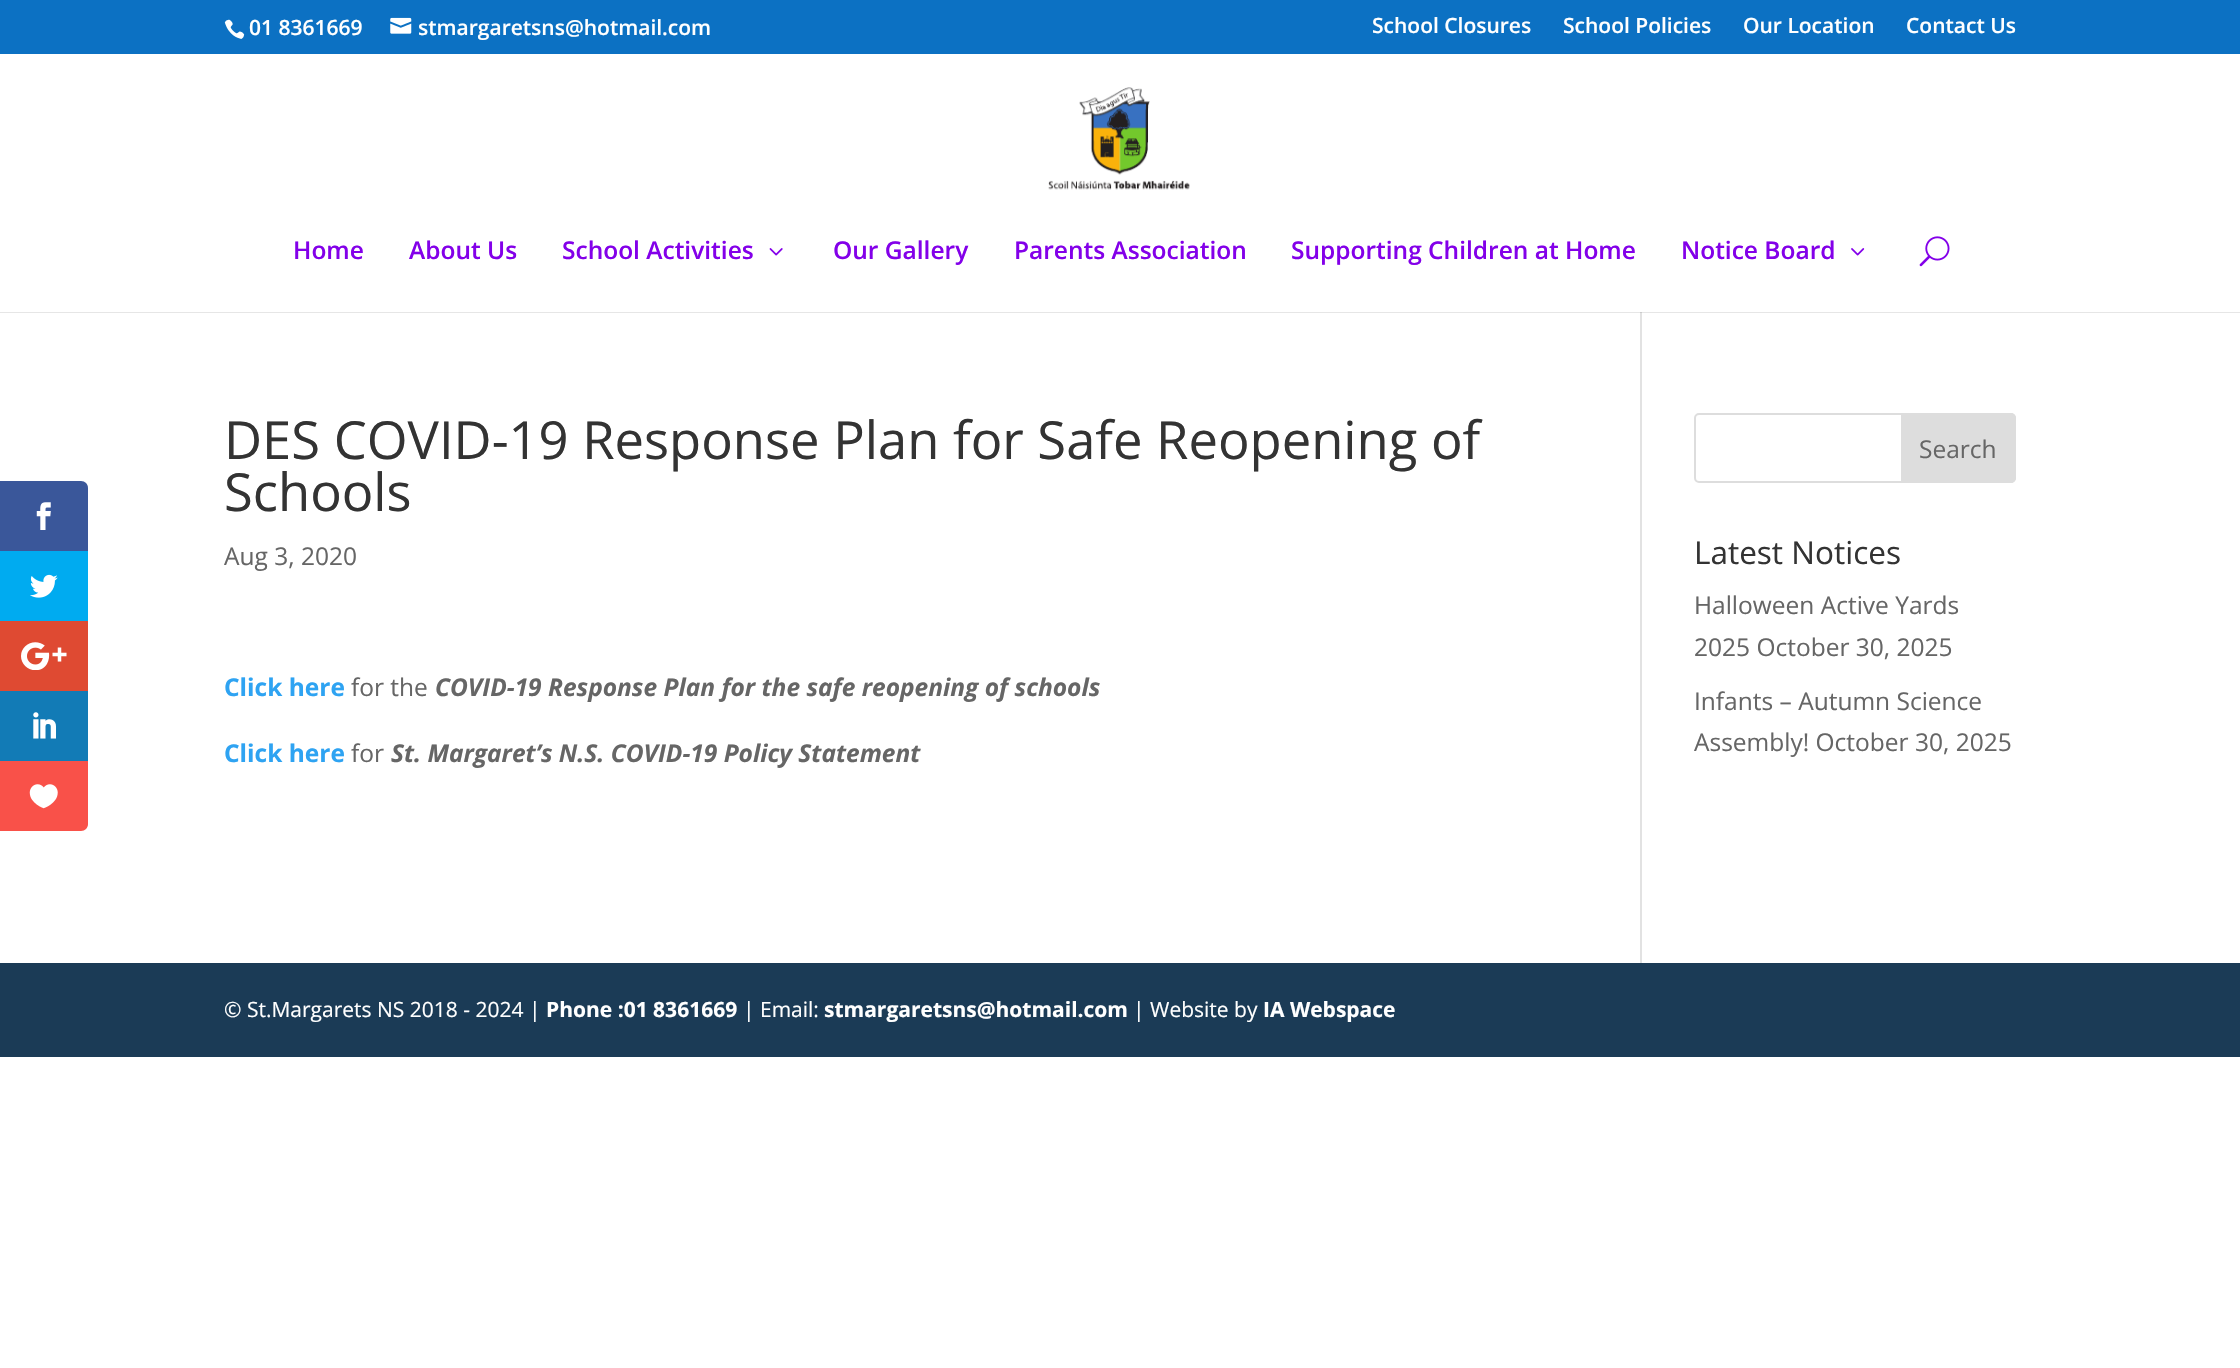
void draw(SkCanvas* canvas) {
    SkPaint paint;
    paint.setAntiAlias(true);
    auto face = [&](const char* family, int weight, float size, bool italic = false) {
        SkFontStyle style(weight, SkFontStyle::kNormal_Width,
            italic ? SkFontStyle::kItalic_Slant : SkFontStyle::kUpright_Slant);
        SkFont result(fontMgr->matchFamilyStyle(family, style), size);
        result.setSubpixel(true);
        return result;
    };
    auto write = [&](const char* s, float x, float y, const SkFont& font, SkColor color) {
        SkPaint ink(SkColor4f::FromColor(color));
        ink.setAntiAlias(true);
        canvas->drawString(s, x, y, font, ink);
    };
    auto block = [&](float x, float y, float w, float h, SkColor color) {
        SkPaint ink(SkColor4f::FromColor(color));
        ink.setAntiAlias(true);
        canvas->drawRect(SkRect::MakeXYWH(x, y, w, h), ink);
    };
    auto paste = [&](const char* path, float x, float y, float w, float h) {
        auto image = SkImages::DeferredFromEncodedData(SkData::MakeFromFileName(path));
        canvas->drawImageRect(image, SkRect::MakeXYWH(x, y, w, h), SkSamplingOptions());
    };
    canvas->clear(SK_ColorWHITE);
    block(0, 312, 2240, 1, SkColorSetRGB(230, 230, 230));
    paint.setColor(SkColorSetRGB(58, 87, 154));
    canvas->drawPath(SkPathBuilder().moveTo(0, 481).lineTo(81, 481).cubicTo(85, 481, 88, 484, 88, 488).lineTo(88, 551).lineTo(0, 551).close().detach(), paint);
    paste("pic1.png", 36, 502, 15, 28);
    block(0, 551, 88, 70, SkColorSetRGB(0, 171, 240));
    paste("pic2.png", 30, 574, 28, 24);
    block(0, 621, 88, 70, SkColorSetRGB(223, 74, 50));
    paste("pic3.png", 21, 642, 46, 28);
    block(0, 691, 88, 70, SkColorSetRGB(18, 123, 182));
    paste("pic4.png", 33, 712, 23, 27);
    paint.setColor(SkColorSetRGB(249, 81, 73));
    canvas->drawPath(SkPathBuilder().moveTo(0, 761).lineTo(88, 761).lineTo(88, 824).cubicTo(88, 828, 85, 831, 81, 831).lineTo(0, 831).close().detach(), paint);
    paste("pic5.png", 29, 784, 29, 25);
    block(0, 0, 2240, 54, SkColorSetRGB(12, 113, 195));
    paste("pic6.png", 224, 19, 21, 20);
    auto kFont1 = face("Open Sans", 600, 21);
    write("01 8361669", 249, 35, kFont1, SK_ColorWHITE);
    paste("pic7.png", 390, 17, 22, 17);
    write("stmargaretsns@hotmail.com", 418, 35, kFont1, SK_ColorWHITE);
    write("School Closures", 1372, 33, kFont1, SK_ColorWHITE);
    write("School Policies", 1563, 33, kFont1, SK_ColorWHITE);
    write("Our Location", 1743, 33, kFont1, SK_ColorWHITE);
    write("Contact Us", 1906, 33, kFont1, SK_ColorWHITE);
    paste("pic8.png", 1048, 87, 142, 103);
    auto kFont2 = face("Open Sans", 600, 24.5f);
    write("Home", 293, 259, kFont2, SkColorSetRGB(131, 0, 233));
    write("About Us", 409, 259, kFont2, SkColorSetRGB(131, 0, 233));
    write("School Activities", 562, 259, kFont2, SkColorSetRGB(131, 0, 233));
    paste("pic9.png", 769, 248, 14, 8);
    write("Our Gallery", 833, 259, kFont2, SkColorSetRGB(131, 0, 233));
    write("Parents Association", 1014, 259, kFont2, SkColorSetRGB(131, 0, 233));
    write("Supporting Children at Home", 1291, 259, kFont2, SkColorSetRGB(131, 0, 233));
    write("Notice Board", 1681, 259, kFont2, SkColorSetRGB(131, 0, 233));
    paste("pic10.png", 1851, 248, 14, 8);
    paste("pic11.png", 1919, 236, 31, 31);
    block(1640, 312, 2, 651, SkColorSetRGB(226, 226, 226));
    block(1640, 312, 2, 1, SkColorSetRGB(203, 203, 203));
    auto kFont3 = face("Open Sans", 400, 52.5f);
    write("DES COVID-19 Response Plan for Safe Reopening of", 224, 459, kFont3, SkColorSetRGB(51, 51, 51));
    write("Schools", 224, 511, kFont3, SkColorSetRGB(51, 51, 51));
    auto kFont4 = face("Open Sans", 400, 24.5f);
    write("Aug 3, 2020", 224, 565, kFont4, SkColorSetRGB(102, 102, 102));
    auto kFont5 = face("Open Sans", 700, 24.5f);
    write("Click here", 224, 696, kFont5, SkColorSetRGB(46, 163, 242));
    write("for the", 351, 696, kFont4, SkColorSetRGB(102, 102, 102));
    auto kFont6 = face("Open Sans", 700, 24.5f, true);
    write("COVID-19 Response Plan for the safe reopening of schools", 435, 696, kFont6, SkColorSetRGB(102, 102, 102));
    write("Click here", 224, 762, kFont5, SkColorSetRGB(46, 163, 242));
    write("for", 351, 762, kFont4, SkColorSetRGB(102, 102, 102));
    write("St. Margaret’s N.S. COVID-19 Policy Statement", 391, 762, kFont6, SkColorSetRGB(102, 102, 102));
    paint.setStyle(SkPaint::kStroke_Style);
    paint.setStrokeWidth(2);
    paint.setColor(SkColorSetRGB(221, 221, 221));
    canvas->drawRoundRect(SkRect::MakeXYWH(1695, 414, 320, 68), 4, 4, paint);
    paint.setStyle(SkPaint::kFill_Style);
    canvas->drawPath(SkPathBuilder().moveTo(1902, 414).lineTo(2011, 414).cubicTo(2013, 414, 2015, 416, 2015, 418).lineTo(2015, 478).cubicTo(2015, 480, 2013, 482, 2011, 482).lineTo(1902, 482).close().detach(), paint);
    paint.setStyle(SkPaint::kStroke_Style);
    canvas->drawPath(SkPathBuilder().moveTo(1902, 414).lineTo(2011, 414).cubicTo(2013, 414, 2015, 416, 2015, 418).lineTo(2015, 478).cubicTo(2015, 480, 2013, 482, 2011, 482).lineTo(1902, 482).close().detach(), paint);
    write("Search", 1919, 458, kFont4, SkColorSetRGB(102, 102, 102));
    auto kFont7 = face("Open Sans", 400, 31.5f);
    write("Latest Notices", 1694, 564, kFont7, SkColorSetRGB(51, 51, 51));
    write("Halloween Active Yards", 1694, 614, kFont4, SkColorSetRGB(102, 102, 102));
    write("2025 October 30, 2025", 1694, 656, kFont4, SkColorSetRGB(102, 102, 102));
    write("Infants – Autumn Science", 1694, 710, kFont4, SkColorSetRGB(102, 102, 102));
    write("Assembly! October 30, 2025", 1694, 751, kFont4, SkColorSetRGB(102, 102, 102));
    block(0, 963, 2240, 94, SkColorSetRGB(27, 59, 86));
    auto kFont8 = face("Open Sans", 400, 21);
    write("© St.Margarets NS 2018 - 2024 |", 224, 1017, kFont8, SK_ColorWHITE);
    auto kFont9 = face("Open Sans", 700, 21);
    write("Phone :01 8361669", 546, 1017, kFont9, SK_ColorWHITE);
    write("| Email:", 743, 1017, kFont8, SK_ColorWHITE);
    write("stmargaretsns@hotmail.com", 824, 1017, kFont9, SK_ColorWHITE);
    write("| Website by", 1133, 1017, kFont8, SK_ColorWHITE);
    write("IA Webspace", 1263, 1017, kFont9, SK_ColorWHITE);
}
